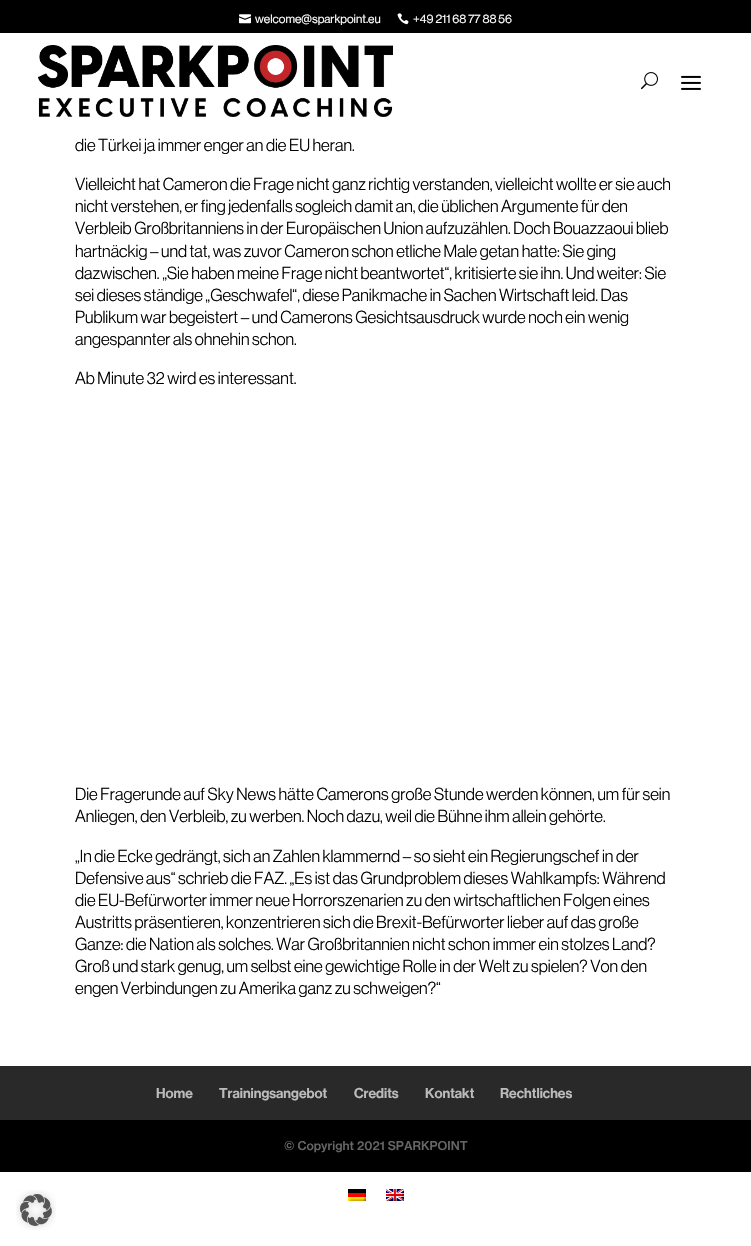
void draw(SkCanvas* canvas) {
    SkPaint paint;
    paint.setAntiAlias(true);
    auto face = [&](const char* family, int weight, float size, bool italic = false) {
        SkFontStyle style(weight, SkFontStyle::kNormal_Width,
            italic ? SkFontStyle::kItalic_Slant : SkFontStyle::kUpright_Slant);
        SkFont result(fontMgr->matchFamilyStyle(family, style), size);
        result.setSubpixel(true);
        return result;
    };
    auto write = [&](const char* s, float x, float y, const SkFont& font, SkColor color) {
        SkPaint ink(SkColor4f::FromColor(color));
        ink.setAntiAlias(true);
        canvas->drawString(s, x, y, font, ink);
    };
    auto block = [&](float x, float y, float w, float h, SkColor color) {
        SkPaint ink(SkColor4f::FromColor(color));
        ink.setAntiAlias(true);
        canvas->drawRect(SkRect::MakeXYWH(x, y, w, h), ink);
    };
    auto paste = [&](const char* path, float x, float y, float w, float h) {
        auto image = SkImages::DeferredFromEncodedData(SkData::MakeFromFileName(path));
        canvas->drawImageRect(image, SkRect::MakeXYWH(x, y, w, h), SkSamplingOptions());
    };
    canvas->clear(SK_ColorWHITE);
    block(0, 0, 751, 33, SK_ColorBLACK);
    paste("pic1.png", 239, 14, 12, 10);
    auto kFont1 = face("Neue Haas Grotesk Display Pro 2", 500, 12);
    write("welcome@sparkpoint.eu", 255, 23, kFont1, SK_ColorWHITE);
    paste("pic2.png", 397, 13, 12, 12);
    write("+49 211 68 77 88 56", 413, 23, kFont1, SK_ColorWHITE);
    paste("pic3.png", 38, 45, 355, 72);
    paste("pic4.png", 641, 72, 17, 18);
    paste("pic5.png", 681, 75, 20, 15);
    auto kFont2 = face("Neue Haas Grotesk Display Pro", 400, 17);
    write("die Türkei ja immer enger an die EU heran.", 75, 151, kFont2, SK_ColorBLACK);
    write("Vielleicht hat Cameron die Frage nicht ganz richtig verstanden, vielleicht wollte er sie auch", 75, 190, kFont2, SK_ColorBLACK);
    write("nicht verstehen, er fing jedenfalls sogleich damit an, die üblichen Argumente für den", 75, 212, kFont2, SK_ColorBLACK);
    write("Verbleib Großbritanniens in der Europäischen Union aufzuzählen. Doch Bouazzaoui blieb", 75, 234, kFont2, SK_ColorBLACK);
    write("hartnäckig – und tat, was zuvor Cameron schon etliche Male getan hatte: Sie ging", 75, 257, kFont2, SK_ColorBLACK);
    write("dazwischen. „Sie haben meine Frage nicht beantwortet“, kritisierte sie ihn. Und weiter: Sie", 75, 279, kFont2, SK_ColorBLACK);
    write("sei dieses ständige „Geschwafel“, diese Panikmache in Sachen Wirtschaft leid. Das", 75, 301, kFont2, SK_ColorBLACK);
    write("Publikum war begeistert – und Camerons Gesichtsausdruck wurde noch ein wenig", 75, 323, kFont2, SK_ColorBLACK);
    write("angespannter als ohnehin schon.", 75, 345, kFont2, SK_ColorBLACK);
    write("Ab Minute 32 wird es interessant.", 75, 384, kFont2, SK_ColorBLACK);
    write("Die Fragerunde auf Sky News hätte Camerons große Stunde werden können, um für sein", 75, 800, kFont2, SK_ColorBLACK);
    write("Anliegen, den Verbleib, zu werben. Noch dazu, weil die Bühne ihm allein gehörte.", 75, 822, kFont2, SK_ColorBLACK);
    write("„In die Ecke gedrängt, sich an Zahlen klammernd – so sieht ein Regierungschef in der", 75, 862, kFont2, SK_ColorBLACK);
    write("Defensive aus“ schrieb die FAZ. „Es ist das Grundproblem dieses Wahlkampfs: Während", 75, 884, kFont2, SK_ColorBLACK);
    write("die EU-Befürworter immer neue Horrorszenarien zu den wirtschaftlichen Folgen eines", 75, 906, kFont2, SK_ColorBLACK);
    write("Austritts präsentieren, konzentrieren sich die Brexit-Befürworter lieber auf das große", 75, 928, kFont2, SK_ColorBLACK);
    write("Ganze: die Nation als solches. War Großbritannien nicht schon immer ein stolzes Land?", 75, 950, kFont2, SK_ColorBLACK);
    write("Groß und stark genug, um selbst eine gewichtige Rolle in der Welt zu spielen? Von den", 75, 972, kFont2, SK_ColorBLACK);
    write("engen Verbindungen zu Amerika ganz zu schweigen?“", 75, 994, kFont2, SK_ColorBLACK);
    block(0, 1066, 751, 54, SkColorSetRGB(41, 41, 41));
    auto kFont3 = face("Neue Haas Grotesk Display Pro", 500, 14);
    write("Home", 156, 1098, kFont3, SkColorSetRGB(187, 187, 187));
    write("Trainingsangebot", 219, 1098, kFont3, SkColorSetRGB(187, 187, 187));
    write("Credits", 354, 1098, kFont3, SkColorSetRGB(187, 187, 187));
    write("Kontakt", 425, 1098, kFont3, SkColorSetRGB(187, 187, 187));
    write("Rechtliches", 500, 1098, kFont3, SkColorSetRGB(187, 187, 187));
    block(0, 1120, 751, 52, SK_ColorBLACK);
    auto kFont4 = face("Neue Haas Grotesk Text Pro", 500, 12);
    write("© Copyright 2021 SPARKPOINT", 284, 1150, kFont4, SkColorSetRGB(102, 102, 102));
    paste("pic6.png", 16, 1190, 40, 40);
    paste("pic7.png", 348, 1189, 18, 12);
    paste("pic8.png", 386, 1189, 18, 12);
}
